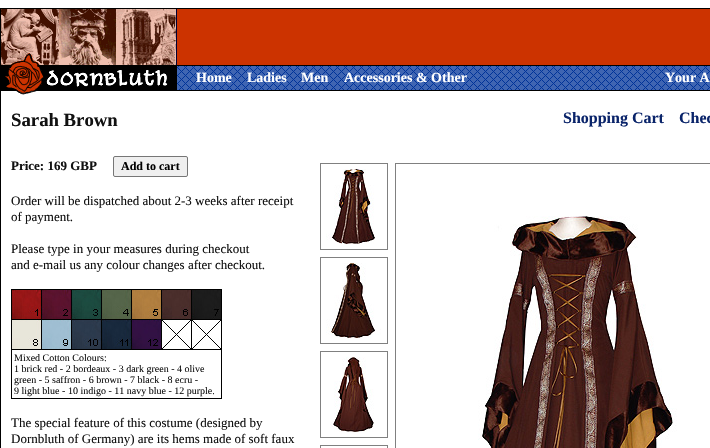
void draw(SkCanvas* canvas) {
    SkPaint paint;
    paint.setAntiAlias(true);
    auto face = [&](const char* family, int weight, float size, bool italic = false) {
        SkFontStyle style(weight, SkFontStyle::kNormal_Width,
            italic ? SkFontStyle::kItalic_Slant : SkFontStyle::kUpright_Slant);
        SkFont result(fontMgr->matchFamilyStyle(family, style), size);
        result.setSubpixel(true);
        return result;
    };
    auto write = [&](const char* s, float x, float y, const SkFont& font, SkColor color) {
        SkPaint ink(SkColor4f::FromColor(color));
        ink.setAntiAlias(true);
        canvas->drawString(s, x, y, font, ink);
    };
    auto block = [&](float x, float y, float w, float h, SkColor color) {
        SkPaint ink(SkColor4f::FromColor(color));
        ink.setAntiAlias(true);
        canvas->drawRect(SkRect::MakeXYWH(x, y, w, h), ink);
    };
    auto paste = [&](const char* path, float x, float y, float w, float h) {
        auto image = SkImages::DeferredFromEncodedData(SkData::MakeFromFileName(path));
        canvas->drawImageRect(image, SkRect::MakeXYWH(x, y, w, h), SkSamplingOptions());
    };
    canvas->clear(SK_ColorWHITE);
    block(0, 8, 710, 1, SK_ColorBLACK);
    paste("pic1.png", 0, 9, 177, 95);
    paste("pic2.png", 5, 53, 172, 42);
    block(177, 9, 533, 56, SkColorSetRGB(204, 51, 0));
    block(177, 65, 533, 1, SK_ColorBLACK);
    paste("pic3.png", 177, 66, 533, 24);
    auto kFont1 = face("Liberation Serif", 700, 14);
    write("Home", 196, 82, kFont1, SK_ColorWHITE);
    write("Ladies", 247, 82, kFont1, SK_ColorWHITE);
    write("Men", 301, 82, kFont1, SK_ColorWHITE);
    write("Accessories & Other", 344, 82, kFont1, SK_ColorWHITE);
    write("Your A", 665, 82, kFont1, SK_ColorWHITE);
    block(177, 90, 533, 1, SK_ColorBLACK);
    block(0, 104, 1, 344, SK_ColorBLACK);
    auto kFont2 = face("Liberation Serif", 700, 18.75f);
    write("Sarah Brown", 11, 126, kFont2, SkColorSetRGB(17, 17, 17));
    auto kFont3 = face("Liberation Serif", 700, 16);
    write("Shopping Cart", 563, 123, kFont3, SkColorSetRGB(10, 36, 106));
    write("Chec", 679, 123, kFont3, SkColorSetRGB(10, 36, 106));
    auto kFont4 = face("Liberation Serif", 700, 13);
    write("Price: 169 GBP", 11, 170, kFont4, SkColorSetRGB(17, 17, 17));
    paint.setColor(SkColorSetRGB(239, 239, 239));
    canvas->drawRoundRect(SkRect::MakeXYWH(113.5f, 156.5f, 74, 20), 1.5f, 1.5f, paint);
    paint.setStyle(SkPaint::kStroke_Style);
    paint.setStrokeWidth(1);
    paint.setColor(SkColorSetRGB(118, 118, 118));
    canvas->drawRoundRect(SkRect::MakeXYWH(113.5f, 156.5f, 74, 20), 1.5f, 1.5f, paint);
    auto kFont5 = face("Liberation Serif", 700, 12);
    write("Add to cart", 121, 170, kFont5, SK_ColorBLACK);
    auto kFont6 = face("Liberation Serif", 400, 13);
    write("Order will be dispatched about 2-3 weeks after receipt", 11, 205, kFont6, SkColorSetRGB(17, 17, 17));
    write("of payment.", 11, 221, kFont6, SkColorSetRGB(17, 17, 17));
    write("Please type in your measures during checkout", 11, 253, kFont6, SkColorSetRGB(17, 17, 17));
    write("and e-mail us any colour changes after checkout.", 11, 269, kFont6, SkColorSetRGB(17, 17, 17));
    paint.setColor(SK_ColorBLACK);
    canvas->drawRect(SkRect::MakeXYWH(11.5f, 289.5f, 210, 109), paint);
    paste("pic4.png", 12, 290, 209, 59);
    block(12, 349, 209, 1, SK_ColorBLACK);
    auto kFont7 = face("Liberation Serif", 400, 10);
    write("Mixed Cotton Colours:", 14, 361, kFont7, SkColorSetRGB(17, 17, 17));
    write("1 brick red - 2 bordeaux - 3 dark green - 4 olive", 14, 372, kFont7, SkColorSetRGB(17, 17, 17));
    write("green - 5 saffron - 6 brown - 7 black - 8 ecru -", 14, 383, kFont7, SkColorSetRGB(17, 17, 17));
    write("9 light blue - 10 indigo - 11 navy blue - 12 purple.", 14, 394, kFont7, SkColorSetRGB(17, 17, 17));
    write("The special feature of this costume (designed by", 11, 427, kFont6, SkColorSetRGB(17, 17, 17));
    write("Dornbluth of Germany) are its hems made of soft faux", 11, 443, kFont6, SkColorSetRGB(17, 17, 17));
    paint.setColor(SkColorSetRGB(128, 128, 128));
    canvas->drawRect(SkRect::MakeXYWH(320.5f, 163.5f, 67, 86), paint);
    paste("pic5.png", 326, 169, 49, 75);
    canvas->drawRect(SkRect::MakeXYWH(395.5f, 163.5f, 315, 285), paint);
    paste("pic6.png", 478, 216, 199, 232);
    canvas->drawRect(SkRect::MakeXYWH(320.5f, 257.5f, 67, 86), paint);
    paste("pic7.png", 326, 263, 55, 75);
    canvas->drawRect(SkRect::MakeXYWH(320.5f, 351.5f, 67, 86), paint);
    paste("pic8.png", 330, 357, 44, 75);
    canvas->drawRect(SkRect::MakeXYWH(320.5f, 445.5f, 67, 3), paint);
}
